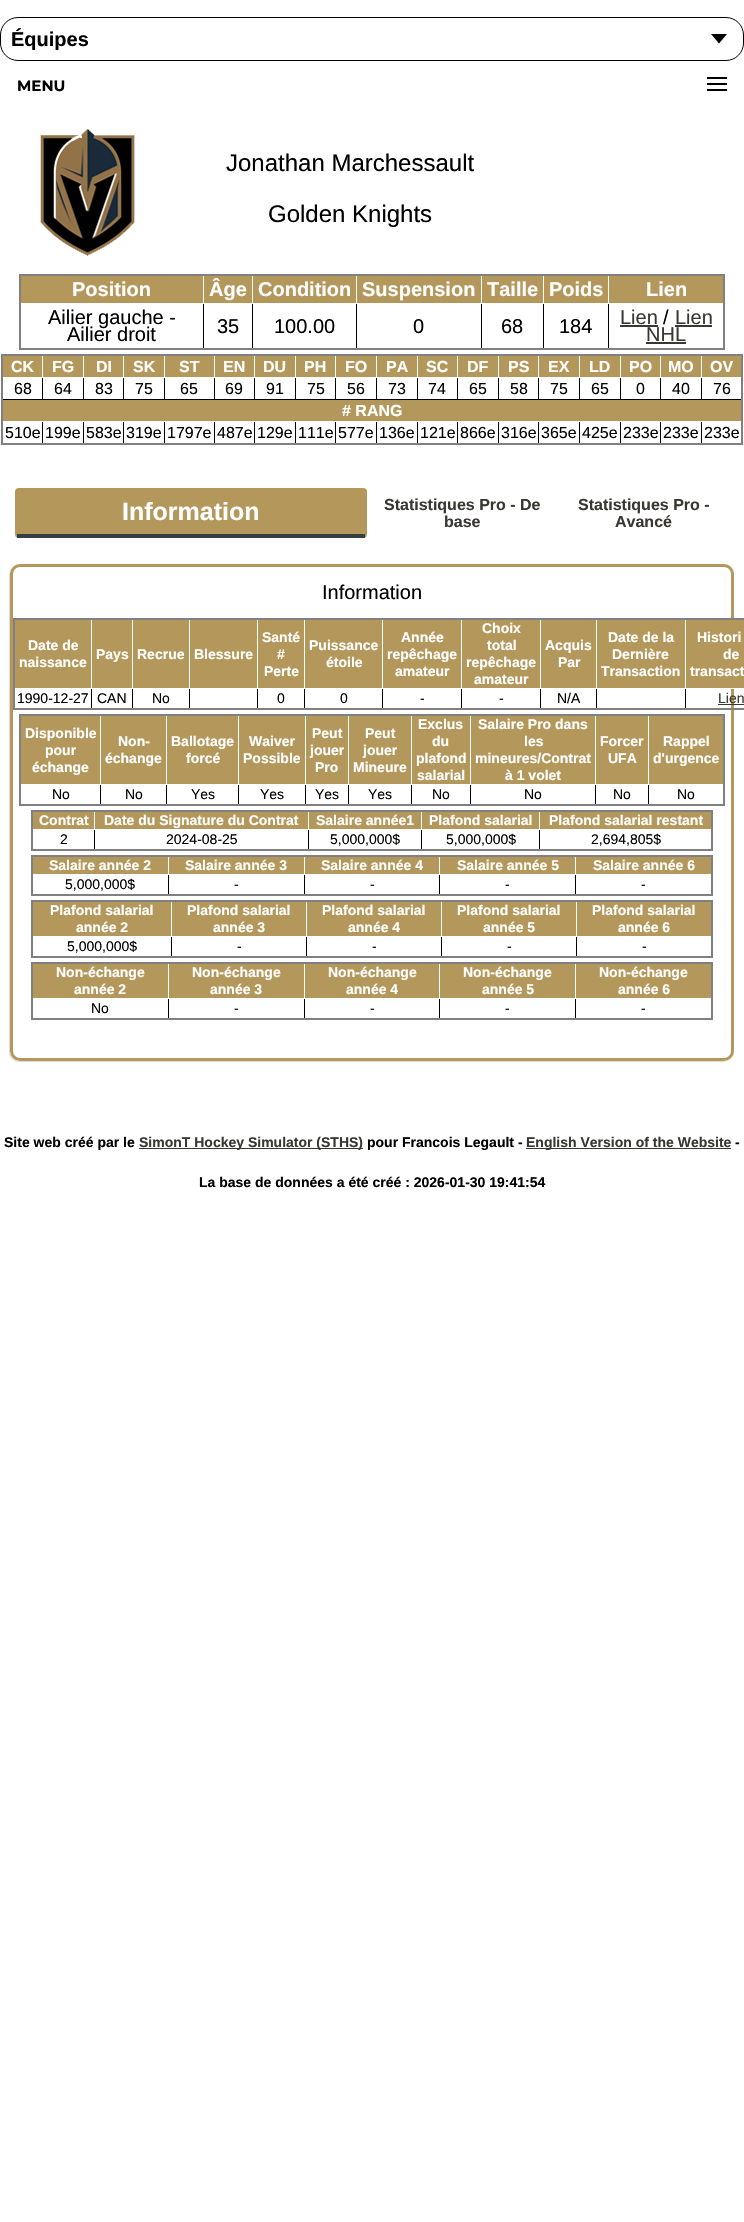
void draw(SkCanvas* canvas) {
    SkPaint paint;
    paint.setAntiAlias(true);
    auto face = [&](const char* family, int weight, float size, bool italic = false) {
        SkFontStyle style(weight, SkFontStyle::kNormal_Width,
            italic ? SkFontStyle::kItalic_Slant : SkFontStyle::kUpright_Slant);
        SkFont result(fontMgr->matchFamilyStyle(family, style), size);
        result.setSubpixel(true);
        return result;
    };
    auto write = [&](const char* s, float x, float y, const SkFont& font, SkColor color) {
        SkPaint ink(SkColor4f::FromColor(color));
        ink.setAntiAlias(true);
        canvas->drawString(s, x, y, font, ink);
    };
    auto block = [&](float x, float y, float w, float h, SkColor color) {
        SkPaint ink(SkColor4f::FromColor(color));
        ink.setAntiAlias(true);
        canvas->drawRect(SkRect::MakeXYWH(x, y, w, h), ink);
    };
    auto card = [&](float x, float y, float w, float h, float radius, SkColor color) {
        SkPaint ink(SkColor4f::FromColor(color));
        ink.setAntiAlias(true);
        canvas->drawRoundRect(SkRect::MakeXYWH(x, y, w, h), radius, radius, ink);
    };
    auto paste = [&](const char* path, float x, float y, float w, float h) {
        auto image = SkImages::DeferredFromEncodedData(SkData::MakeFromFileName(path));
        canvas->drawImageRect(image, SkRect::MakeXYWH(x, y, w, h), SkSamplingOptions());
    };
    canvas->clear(SK_ColorWHITE);
    paint.setColor(SK_ColorBLACK);
    canvas->drawPath(SkPathBuilder().moveTo(711, 34).lineTo(719, 43.5f).lineTo(727, 34).close().detach(), paint);
    paint.setStyle(SkPaint::kStroke_Style);
    paint.setStrokeWidth(1);
    canvas->drawRoundRect(SkRect::MakeXYWH(0.5f, 17.5f, 743, 43), 17.5f, 17.5f, paint);
    canvas->save();
    canvas->clipRect(SkRect::MakeXYWH(11, 28, 692, 22));
    auto kFont1 = face("Liberation Sans", 700, 20);
    write("Équipes", 11, 46, kFont1, SK_ColorBLACK);
    canvas->restore();
    block(707, 77, 20, 2, SK_ColorBLACK);
    auto kFont2 = face("Montserrat", 700, 15);
    write("MENU", 17, 91, kFont2, SK_ColorBLACK);
    block(707, 83, 20, 2, SK_ColorBLACK);
    block(707, 89, 20, 2, SK_ColorBLACK);
    paste("pic1.png", 40, 129, 95, 127);
    auto kFont3 = face("Liberation Sans", 400, 24);
    write("Jonathan Marchessault", 226, 171, kFont3, SK_ColorBLACK);
    write("Golden Knights", 268, 222, kFont3, SK_ColorBLACK);
    block(19, 274, 706, 2, SkColorSetRGB(128, 128, 128));
    block(723, 274, 2, 76, SkColorSetRGB(128, 128, 128));
    block(203, 303, 1, 47, SK_ColorBLACK);
    block(252, 303, 1, 47, SK_ColorBLACK);
    block(356, 303, 1, 47, SK_ColorBLACK);
    block(481, 303, 1, 47, SK_ColorBLACK);
    block(543, 303, 1, 47, SK_ColorBLACK);
    block(608, 303, 1, 47, SK_ColorBLACK);
    block(19, 348, 706, 2, SkColorSetRGB(128, 128, 128));
    block(19, 274, 2, 76, SkColorSetRGB(128, 128, 128));
    block(21, 276, 182, 27, SkColorSetRGB(180, 151, 90));
    write("Position", 72, 296, kFont1, SK_ColorWHITE);
    block(204, 276, 48, 27, SkColorSetRGB(180, 151, 90));
    block(203, 303, 1, 1, SK_ColorWHITE);
    write("Âge", 209, 296, kFont1, SK_ColorWHITE);
    block(253, 276, 103, 27, SkColorSetRGB(180, 151, 90));
    block(252, 303, 1, 1, SK_ColorWHITE);
    write("Condition", 258, 296, kFont1, SK_ColorWHITE);
    block(357, 276, 124, 27, SkColorSetRGB(180, 151, 90));
    block(356, 303, 1, 1, SK_ColorWHITE);
    write("Suspension", 362, 296, kFont1, SK_ColorWHITE);
    block(482, 276, 61, 27, SkColorSetRGB(180, 151, 90));
    block(481, 303, 1, 1, SK_ColorWHITE);
    write("Taille", 487, 296, kFont1, SK_ColorWHITE);
    block(544, 276, 64, 27, SkColorSetRGB(180, 151, 90));
    block(543, 303, 1, 1, SK_ColorWHITE);
    write("Poids", 549, 296, kFont1, SK_ColorWHITE);
    block(609, 276, 114, 27, SkColorSetRGB(180, 151, 90));
    block(608, 303, 1, 1, SK_ColorWHITE);
    write("Lien", 646, 296, kFont1, SK_ColorWHITE);
    auto kFont4 = face("Liberation Sans", 400, 20);
    write("Ailier gauche -", 48, 324, kFont4, SK_ColorBLACK);
    write("Ailier droit", 67, 341, kFont4, SK_ColorBLACK);
    write("35", 217, 333, kFont4, SK_ColorBLACK);
    write("100.00", 274, 333, kFont4, SK_ColorBLACK);
    write("0", 413, 333, kFont4, SK_ColorBLACK);
    write("68", 501, 333, kFont4, SK_ColorBLACK);
    write("184", 559, 333, kFont4, SK_ColorBLACK);
    write("Lien", 620, 324, kFont4, SkColorSetRGB(56, 55, 50));
    block(620, 325, 38, 2, SkColorSetRGB(56, 55, 50));
    write("/", 663, 324, kFont4, SK_ColorBLACK);
    write("Lien", 675, 324, kFont4, SkColorSetRGB(56, 55, 50));
    write("NHL", 646, 341, kFont4, SkColorSetRGB(56, 55, 50));
    block(675, 325, 37, 2, SkColorSetRGB(56, 55, 50));
    block(646, 342, 40, 2, SkColorSetRGB(56, 55, 50));
    block(1, 354, 742, 2, SkColorSetRGB(128, 128, 128));
    block(701, 399, 42, 1, SK_ColorBLACK);
    block(741, 354, 2, 91, SkColorSetRGB(128, 128, 128));
    block(42, 421, 1, 24, SK_ColorBLACK);
    block(83, 421, 1, 24, SK_ColorBLACK);
    block(123, 421, 1, 24, SK_ColorBLACK);
    block(164, 421, 1, 24, SK_ColorBLACK);
    block(214, 421, 1, 24, SK_ColorBLACK);
    block(254, 421, 1, 24, SK_ColorBLACK);
    block(295, 421, 1, 24, SK_ColorBLACK);
    block(335, 421, 1, 24, SK_ColorBLACK);
    block(376, 421, 1, 24, SK_ColorBLACK);
    block(417, 421, 1, 24, SK_ColorBLACK);
    block(457, 421, 1, 24, SK_ColorBLACK);
    block(498, 421, 1, 24, SK_ColorBLACK);
    block(538, 421, 1, 24, SK_ColorBLACK);
    block(579, 421, 1, 24, SK_ColorBLACK);
    block(620, 421, 1, 24, SK_ColorBLACK);
    block(660, 421, 1, 24, SK_ColorBLACK);
    block(701, 421, 1, 24, SK_ColorBLACK);
    block(1, 443, 742, 2, SkColorSetRGB(128, 128, 128));
    block(701, 377, 1, 23, SK_ColorBLACK);
    block(660, 399, 42, 1, SK_ColorBLACK);
    block(660, 377, 1, 23, SK_ColorBLACK);
    block(620, 399, 41, 1, SK_ColorBLACK);
    block(620, 377, 1, 23, SK_ColorBLACK);
    block(579, 399, 42, 1, SK_ColorBLACK);
    block(579, 377, 1, 23, SK_ColorBLACK);
    block(538, 399, 42, 1, SK_ColorBLACK);
    block(538, 377, 1, 23, SK_ColorBLACK);
    block(498, 399, 41, 1, SK_ColorBLACK);
    block(498, 377, 1, 23, SK_ColorBLACK);
    block(457, 399, 42, 1, SK_ColorBLACK);
    block(457, 377, 1, 23, SK_ColorBLACK);
    block(417, 399, 41, 1, SK_ColorBLACK);
    block(417, 377, 1, 23, SK_ColorBLACK);
    block(376, 399, 42, 1, SK_ColorBLACK);
    block(376, 377, 1, 23, SK_ColorBLACK);
    block(335, 399, 42, 1, SK_ColorBLACK);
    block(335, 377, 1, 23, SK_ColorBLACK);
    block(295, 399, 41, 1, SK_ColorBLACK);
    block(295, 377, 1, 23, SK_ColorBLACK);
    block(254, 399, 42, 1, SK_ColorBLACK);
    block(254, 377, 1, 23, SK_ColorBLACK);
    block(214, 399, 41, 1, SK_ColorBLACK);
    block(214, 377, 1, 23, SK_ColorBLACK);
    block(164, 399, 51, 1, SK_ColorBLACK);
    block(164, 377, 1, 23, SK_ColorBLACK);
    block(123, 399, 42, 1, SK_ColorBLACK);
    block(123, 377, 1, 23, SK_ColorBLACK);
    block(83, 399, 41, 1, SK_ColorBLACK);
    block(83, 377, 1, 23, SK_ColorBLACK);
    block(42, 399, 42, 1, SK_ColorBLACK);
    block(42, 377, 1, 23, SK_ColorBLACK);
    block(1, 399, 42, 1, SK_ColorBLACK);
    block(1, 354, 2, 91, SkColorSetRGB(128, 128, 128));
    block(3, 356, 39, 21, SkColorSetRGB(180, 151, 90));
    auto kFont5 = face("Liberation Sans", 700, 16);
    write("CK", 11, 372, kFont5, SK_ColorWHITE);
    block(43, 356, 40, 21, SkColorSetRGB(180, 151, 90));
    block(42, 377, 1, 1, SK_ColorWHITE);
    write("FG", 52, 372, kFont5, SK_ColorWHITE);
    block(84, 356, 39, 21, SkColorSetRGB(180, 151, 90));
    block(83, 377, 1, 1, SK_ColorWHITE);
    write("DI", 96, 372, kFont5, SK_ColorWHITE);
    block(124, 356, 40, 21, SkColorSetRGB(180, 151, 90));
    block(123, 377, 1, 1, SK_ColorWHITE);
    write("SK", 133, 372, kFont5, SK_ColorWHITE);
    block(165, 356, 49, 21, SkColorSetRGB(180, 151, 90));
    block(164, 377, 1, 1, SK_ColorWHITE);
    write("ST", 179, 372, kFont5, SK_ColorWHITE);
    block(215, 356, 39, 21, SkColorSetRGB(180, 151, 90));
    block(214, 377, 1, 1, SK_ColorWHITE);
    write("EN", 223, 372, kFont5, SK_ColorWHITE);
    block(255, 356, 40, 21, SkColorSetRGB(180, 151, 90));
    block(254, 377, 1, 1, SK_ColorWHITE);
    write("DU", 263, 372, kFont5, SK_ColorWHITE);
    block(296, 356, 39, 21, SkColorSetRGB(180, 151, 90));
    block(295, 377, 1, 1, SK_ColorWHITE);
    write("PH", 304, 372, kFont5, SK_ColorWHITE);
    block(336, 356, 40, 21, SkColorSetRGB(180, 151, 90));
    block(335, 377, 1, 1, SK_ColorWHITE);
    write("FO", 345, 372, kFont5, SK_ColorWHITE);
    block(377, 356, 40, 21, SkColorSetRGB(180, 151, 90));
    block(376, 377, 1, 1, SK_ColorWHITE);
    write("PA", 386, 372, kFont5, SK_ColorWHITE);
    block(418, 356, 39, 21, SkColorSetRGB(180, 151, 90));
    block(417, 377, 1, 1, SK_ColorWHITE);
    write("SC", 426, 372, kFont5, SK_ColorWHITE);
    block(458, 356, 40, 21, SkColorSetRGB(180, 151, 90));
    block(457, 377, 1, 1, SK_ColorWHITE);
    write("DF", 467, 372, kFont5, SK_ColorWHITE);
    block(499, 356, 39, 21, SkColorSetRGB(180, 151, 90));
    block(498, 377, 1, 1, SK_ColorWHITE);
    write("PS", 508, 372, kFont5, SK_ColorWHITE);
    block(539, 356, 40, 21, SkColorSetRGB(180, 151, 90));
    block(538, 377, 1, 1, SK_ColorWHITE);
    write("EX", 548, 372, kFont5, SK_ColorWHITE);
    block(580, 356, 40, 21, SkColorSetRGB(180, 151, 90));
    block(579, 377, 1, 1, SK_ColorWHITE);
    write("LD", 589, 372, kFont5, SK_ColorWHITE);
    block(621, 356, 39, 21, SkColorSetRGB(180, 151, 90));
    block(620, 377, 1, 1, SK_ColorWHITE);
    write("PO", 629, 372, kFont5, SK_ColorWHITE);
    block(661, 356, 40, 21, SkColorSetRGB(180, 151, 90));
    block(660, 377, 1, 1, SK_ColorWHITE);
    write("MO", 668, 372, kFont5, SK_ColorWHITE);
    block(702, 356, 39, 21, SkColorSetRGB(180, 151, 90));
    block(701, 377, 1, 1, SK_ColorWHITE);
    write("OV", 710, 372, kFont5, SK_ColorWHITE);
    auto kFont6 = face("Liberation Sans", 400, 16);
    write("68", 14, 394, kFont6, SK_ColorBLACK);
    write("64", 54, 394, kFont6, SK_ColorBLACK);
    write("83", 95, 394, kFont6, SK_ColorBLACK);
    write("75", 135, 394, kFont6, SK_ColorBLACK);
    write("65", 180, 394, kFont6, SK_ColorBLACK);
    write("69", 225, 394, kFont6, SK_ColorBLACK);
    write("91", 266, 394, kFont6, SK_ColorBLACK);
    write("75", 307, 394, kFont6, SK_ColorBLACK);
    write("56", 347, 394, kFont6, SK_ColorBLACK);
    write("73", 388, 394, kFont6, SK_ColorBLACK);
    write("74", 428, 394, kFont6, SK_ColorBLACK);
    write("65", 469, 394, kFont6, SK_ColorBLACK);
    write("58", 510, 394, kFont6, SK_ColorBLACK);
    write("75", 550, 394, kFont6, SK_ColorBLACK);
    write("65", 591, 394, kFont6, SK_ColorBLACK);
    write("0", 636, 394, kFont6, SK_ColorBLACK);
    write("40", 672, 394, kFont6, SK_ColorBLACK);
    write("76", 713, 394, kFont6, SK_ColorBLACK);
    block(3, 400, 738, 21, SkColorSetRGB(180, 151, 90));
    block(42, 421, 660, 1, SK_ColorWHITE);
    write("# RANG", 342, 416, kFont5, SK_ColorWHITE);
    write("510e", 5, 438, kFont6, SK_ColorBLACK);
    write("199e", 45, 438, kFont6, SK_ColorBLACK);
    write("583e", 86, 438, kFont6, SK_ColorBLACK);
    write("319e", 126, 438, kFont6, SK_ColorBLACK);
    write("1797e", 167, 438, kFont6, SK_ColorBLACK);
    write("487e", 217, 438, kFont6, SK_ColorBLACK);
    write("129e", 257, 438, kFont6, SK_ColorBLACK);
    write("111e", 298, 438, kFont6, SK_ColorBLACK);
    write("577e", 338, 438, kFont6, SK_ColorBLACK);
    write("136e", 379, 438, kFont6, SK_ColorBLACK);
    write("121e", 420, 438, kFont6, SK_ColorBLACK);
    write("866e", 460, 438, kFont6, SK_ColorBLACK);
    write("316e", 501, 438, kFont6, SK_ColorBLACK);
    write("365e", 541, 438, kFont6, SK_ColorBLACK);
    write("425e", 582, 438, kFont6, SK_ColorBLACK);
    write("233e", 623, 438, kFont6, SK_ColorBLACK);
    write("233e", 663, 438, kFont6, SK_ColorBLACK);
    write("233e", 704, 438, kFont6, SK_ColorBLACK);
    card(15, 488, 352, 50, 4, SkColorSetRGB(180, 151, 90));
    block(17, 534, 348, 4, SkColorSetRGB(51, 63, 66));
    auto kFont7 = face("Liberation Sans", 700, 25);
    write("Information", 122, 520, kFont7, SK_ColorWHITE);
    write("Statistiques Pro - De", 384, 510, kFont5, SkColorSetRGB(56, 55, 50));
    write("base", 444, 527, kFont5, SkColorSetRGB(56, 55, 50));
    write("Statistiques Pro -", 578, 510, kFont5, SkColorSetRGB(56, 55, 50));
    write("Avancé", 615, 527, kFont5, SkColorSetRGB(56, 55, 50));
    canvas->save();
    canvas->clipPath(SkPathBuilder(SkPathFillType::kEvenOdd).moveTo(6, 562).lineTo(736, 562).lineTo(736, 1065).lineTo(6, 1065).close().moveTo(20, 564).lineTo(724, 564).cubicTo(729.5f, 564, 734, 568.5f, 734, 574).lineTo(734, 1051).cubicTo(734, 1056.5f, 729.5f, 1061, 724, 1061).lineTo(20, 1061).cubicTo(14.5f, 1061, 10, 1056.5f, 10, 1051).lineTo(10, 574).cubicTo(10, 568.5f, 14.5f, 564, 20, 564).close().detach(), true);
    paint.setStyle(SkPaint::kFill_Style);
    paint.setColor(SkColorSetARGB(38, 0, 0, 0));
    paint.setMaskFilter(SkMaskFilter::MakeBlur(kNormal_SkBlurStyle, 0.5f));
    canvas->drawRoundRect(SkRect::MakeXYWH(9, 565, 724, 497), 10, 10, paint);
    paint.setMaskFilter(nullptr);
    canvas->restore();
    paint.setStyle(SkPaint::kStroke_Style);
    paint.setStrokeWidth(3);
    paint.setColor(SkColorSetRGB(180, 151, 90));
    canvas->drawRoundRect(SkRect::MakeXYWH(11.5f, 565.5f, 721, 494), 8.5f, 8.5f, paint);
    write("Information", 322, 599, kFont4, SK_ColorBLACK);
    block(13, 618, 731, 2, SkColorSetRGB(128, 128, 128));
    block(91, 688, 1, 22, SK_ColorBLACK);
    block(132, 688, 1, 22, SK_ColorBLACK);
    block(189, 688, 1, 22, SK_ColorBLACK);
    block(257, 688, 1, 22, SK_ColorBLACK);
    block(304, 688, 1, 22, SK_ColorBLACK);
    block(382, 688, 1, 22, SK_ColorBLACK);
    block(461, 688, 1, 22, SK_ColorBLACK);
    block(540, 688, 1, 22, SK_ColorBLACK);
    block(596, 688, 1, 22, SK_ColorBLACK);
    block(685, 688, 1, 22, SK_ColorBLACK);
    block(13, 708, 731, 2, SkColorSetRGB(128, 128, 128));
    block(13, 618, 2, 92, SkColorSetRGB(128, 128, 128));
    block(15, 620, 76, 68, SkColorSetRGB(180, 151, 90));
    auto kFont8 = face("Liberation Sans", 700, 14);
    write("Date de", 28, 650, kFont8, SK_ColorWHITE);
    write("naissance", 19, 667, kFont8, SK_ColorWHITE);
    block(92, 620, 40, 68, SkColorSetRGB(180, 151, 90));
    block(91, 688, 1, 1, SK_ColorWHITE);
    write("Pays", 96, 659, kFont8, SK_ColorWHITE);
    block(133, 620, 56, 68, SkColorSetRGB(180, 151, 90));
    block(132, 688, 1, 1, SK_ColorWHITE);
    write("Recrue", 137, 659, kFont8, SK_ColorWHITE);
    block(190, 620, 67, 68, SkColorSetRGB(180, 151, 90));
    block(189, 688, 1, 1, SK_ColorWHITE);
    write("Blessure", 194, 659, kFont8, SK_ColorWHITE);
    block(258, 620, 46, 68, SkColorSetRGB(180, 151, 90));
    block(257, 688, 1, 1, SK_ColorWHITE);
    write("Santé", 262, 642, kFont8, SK_ColorWHITE);
    write("#", 277, 659, kFont8, SK_ColorWHITE);
    write("Perte", 264, 676, kFont8, SK_ColorWHITE);
    block(305, 620, 77, 68, SkColorSetRGB(180, 151, 90));
    block(304, 688, 1, 1, SK_ColorWHITE);
    write("Puissance", 309, 650, kFont8, SK_ColorWHITE);
    write("étoile", 326, 667, kFont8, SK_ColorWHITE);
    block(383, 620, 78, 68, SkColorSetRGB(180, 151, 90));
    block(382, 688, 1, 1, SK_ColorWHITE);
    write("Année", 401, 642, kFont8, SK_ColorWHITE);
    write("repêchage", 387, 659, kFont8, SK_ColorWHITE);
    write("amateur", 395, 676, kFont8, SK_ColorWHITE);
    block(462, 620, 78, 68, SkColorSetRGB(180, 151, 90));
    block(461, 688, 1, 1, SK_ColorWHITE);
    write("Choix", 482, 633, kFont8, SK_ColorWHITE);
    write("total", 487, 650, kFont8, SK_ColorWHITE);
    write("repêchage", 466, 667, kFont8, SK_ColorWHITE);
    write("amateur", 474, 684, kFont8, SK_ColorWHITE);
    block(541, 620, 55, 68, SkColorSetRGB(180, 151, 90));
    block(540, 688, 1, 1, SK_ColorWHITE);
    write("Acquis", 545, 650, kFont8, SK_ColorWHITE);
    write("Par", 558, 667, kFont8, SK_ColorWHITE);
    block(597, 620, 88, 68, SkColorSetRGB(180, 151, 90));
    block(596, 688, 1, 1, SK_ColorWHITE);
    write("Date de la", 608, 642, kFont8, SK_ColorWHITE);
    write("Dernière", 612, 659, kFont8, SK_ColorWHITE);
    write("Transaction", 601, 676, kFont8, SK_ColorWHITE);
    block(686, 620, 58, 68, SkColorSetRGB(180, 151, 90));
    block(685, 688, 49, 1, SK_ColorWHITE);
    write("Histori", 697, 642, kFont8, SK_ColorWHITE);
    write("de", 723, 659, kFont8, SK_ColorWHITE);
    write("transact", 690, 676, kFont8, SK_ColorWHITE);
    auto kFont9 = face("Liberation Sans", 400, 14);
    write("1990-12-27", 17, 703, kFont9, SK_ColorBLACK);
    write("CAN", 97, 703, kFont9, SK_ColorBLACK);
    write("No", 152, 703, kFont9, SK_ColorBLACK);
    write("0", 277, 703, kFont9, SK_ColorBLACK);
    write("0", 340, 703, kFont9, SK_ColorBLACK);
    write("-", 420, 703, kFont9, SK_ColorBLACK);
    write("-", 499, 703, kFont9, SK_ColorBLACK);
    write("N/A", 557, 703, kFont9, SK_ColorBLACK);
    write("Lien", 718, 703, kFont9, SkColorSetRGB(56, 55, 50));
    block(718, 704, 26, 1, SkColorSetRGB(56, 55, 50));
    block(19, 714, 706, 2, SkColorSetRGB(128, 128, 128));
    block(723, 714, 2, 92, SkColorSetRGB(128, 128, 128));
    block(100, 784, 1, 22, SK_ColorBLACK);
    block(166, 784, 1, 22, SK_ColorBLACK);
    block(238, 784, 1, 22, SK_ColorBLACK);
    block(305, 784, 1, 22, SK_ColorBLACK);
    block(348, 784, 1, 22, SK_ColorBLACK);
    block(411, 784, 1, 22, SK_ColorBLACK);
    block(470, 784, 1, 22, SK_ColorBLACK);
    block(595, 784, 1, 22, SK_ColorBLACK);
    block(648, 784, 1, 22, SK_ColorBLACK);
    block(19, 804, 706, 2, SkColorSetRGB(128, 128, 128));
    block(19, 714, 2, 92, SkColorSetRGB(128, 128, 128));
    block(21, 716, 79, 68, SkColorSetRGB(180, 151, 90));
    write("Disponible", 25, 738, kFont8, SK_ColorWHITE);
    write("pour", 45, 755, kFont8, SK_ColorWHITE);
    write("échange", 32, 772, kFont8, SK_ColorWHITE);
    block(101, 716, 65, 68, SkColorSetRGB(180, 151, 90));
    block(100, 784, 1, 1, SK_ColorWHITE);
    write("Non-", 118, 746, kFont8, SK_ColorWHITE);
    write("échange", 105, 763, kFont8, SK_ColorWHITE);
    block(167, 716, 71, 68, SkColorSetRGB(180, 151, 90));
    block(166, 784, 1, 1, SK_ColorWHITE);
    write("Ballotage", 171, 746, kFont8, SK_ColorWHITE);
    write("forcé", 186, 763, kFont8, SK_ColorWHITE);
    block(239, 716, 66, 68, SkColorSetRGB(180, 151, 90));
    block(238, 784, 1, 1, SK_ColorWHITE);
    write("Waiver", 249, 746, kFont8, SK_ColorWHITE);
    write("Possible", 243, 763, kFont8, SK_ColorWHITE);
    block(306, 716, 42, 68, SkColorSetRGB(180, 151, 90));
    block(305, 784, 1, 1, SK_ColorWHITE);
    write("Peut", 312, 738, kFont8, SK_ColorWHITE);
    write("jouer", 310, 755, kFont8, SK_ColorWHITE);
    write("Pro", 315, 772, kFont8, SK_ColorWHITE);
    block(349, 716, 62, 68, SkColorSetRGB(180, 151, 90));
    block(348, 784, 1, 1, SK_ColorWHITE);
    write("Peut", 365, 738, kFont8, SK_ColorWHITE);
    write("jouer", 363, 755, kFont8, SK_ColorWHITE);
    write("Mineure", 353, 772, kFont8, SK_ColorWHITE);
    block(412, 716, 58, 68, SkColorSetRGB(180, 151, 90));
    block(411, 784, 1, 1, SK_ColorWHITE);
    write("Exclus", 418, 729, kFont8, SK_ColorWHITE);
    write("du", 432, 746, kFont8, SK_ColorWHITE);
    write("plafond", 416, 763, kFont8, SK_ColorWHITE);
    write("salarial", 417, 780, kFont8, SK_ColorWHITE);
    block(471, 716, 124, 68, SkColorSetRGB(180, 151, 90));
    block(470, 784, 1, 1, SK_ColorWHITE);
    write("Salaire Pro dans", 478, 729, kFont8, SK_ColorWHITE);
    write("les", 524, 746, kFont8, SK_ColorWHITE);
    write("mineures/Contrat", 475, 763, kFont8, SK_ColorWHITE);
    write("à 1 volet", 505, 780, kFont8, SK_ColorWHITE);
    block(596, 716, 52, 68, SkColorSetRGB(180, 151, 90));
    block(595, 784, 1, 1, SK_ColorWHITE);
    write("Forcer", 600, 746, kFont8, SK_ColorWHITE);
    write("UFA", 608, 763, kFont8, SK_ColorWHITE);
    block(649, 716, 74, 68, SkColorSetRGB(180, 151, 90));
    block(648, 784, 1, 1, SK_ColorWHITE);
    write("Rappel", 663, 746, kFont8, SK_ColorWHITE);
    write("d'urgence", 653, 763, kFont8, SK_ColorWHITE);
    write("No", 52, 799, kFont9, SK_ColorBLACK);
    write("No", 125, 799, kFont9, SK_ColorBLACK);
    write("Yes", 191, 799, kFont9, SK_ColorBLACK);
    write("Yes", 260, 799, kFont9, SK_ColorBLACK);
    write("Yes", 315, 799, kFont9, SK_ColorBLACK);
    write("Yes", 368, 799, kFont9, SK_ColorBLACK);
    write("No", 432, 799, kFont9, SK_ColorBLACK);
    write("No", 524, 799, kFont9, SK_ColorBLACK);
    write("No", 613, 799, kFont9, SK_ColorBLACK);
    write("No", 677, 799, kFont9, SK_ColorBLACK);
    block(31, 810, 682, 2, SkColorSetRGB(128, 128, 128));
    block(711, 810, 2, 41, SkColorSetRGB(128, 128, 128));
    block(94, 829, 1, 22, SK_ColorBLACK);
    block(308, 829, 1, 22, SK_ColorBLACK);
    block(421, 829, 1, 22, SK_ColorBLACK);
    block(539, 829, 1, 22, SK_ColorBLACK);
    block(31, 849, 682, 2, SkColorSetRGB(128, 128, 128));
    block(31, 810, 2, 41, SkColorSetRGB(128, 128, 128));
    block(33, 812, 61, 17, SkColorSetRGB(180, 151, 90));
    write("Contrat", 39, 825, kFont8, SK_ColorWHITE);
    block(95, 812, 213, 17, SkColorSetRGB(180, 151, 90));
    block(94, 829, 1, 1, SK_ColorWHITE);
    write("Date du Signature du Contrat", 104, 825, kFont8, SK_ColorWHITE);
    block(309, 812, 112, 17, SkColorSetRGB(180, 151, 90));
    block(308, 829, 1, 1, SK_ColorWHITE);
    write("Salaire année1", 316, 825, kFont8, SK_ColorWHITE);
    block(422, 812, 117, 17, SkColorSetRGB(180, 151, 90));
    block(421, 829, 1, 1, SK_ColorWHITE);
    write("Plafond salarial", 429, 825, kFont8, SK_ColorWHITE);
    block(540, 812, 171, 17, SkColorSetRGB(180, 151, 90));
    block(539, 829, 1, 1, SK_ColorWHITE);
    write("Plafond salarial restant", 549, 825, kFont8, SK_ColorWHITE);
    write("2", 60, 844, kFont9, SK_ColorBLACK);
    write("2024-08-25", 166, 844, kFont9, SK_ColorBLACK);
    write("5,000,000$", 330, 844, kFont9, SK_ColorBLACK);
    write("5,000,000$", 446, 844, kFont9, SK_ColorBLACK);
    write("2,694,805$", 591, 844, kFont9, SK_ColorBLACK);
    block(31, 855, 682, 2, SkColorSetRGB(128, 128, 128));
    block(711, 855, 2, 41, SkColorSetRGB(128, 128, 128));
    block(168, 874, 1, 22, SK_ColorBLACK);
    block(304, 874, 1, 22, SK_ColorBLACK);
    block(439, 874, 1, 22, SK_ColorBLACK);
    block(575, 874, 1, 22, SK_ColorBLACK);
    block(31, 894, 682, 2, SkColorSetRGB(128, 128, 128));
    block(31, 855, 2, 41, SkColorSetRGB(128, 128, 128));
    block(33, 857, 135, 17, SkColorSetRGB(180, 151, 90));
    write("Salaire année 2", 49, 870, kFont8, SK_ColorWHITE);
    block(169, 857, 135, 17, SkColorSetRGB(180, 151, 90));
    block(168, 874, 1, 1, SK_ColorWHITE);
    write("Salaire année 3", 185, 870, kFont8, SK_ColorWHITE);
    block(305, 857, 134, 17, SkColorSetRGB(180, 151, 90));
    block(304, 874, 1, 1, SK_ColorWHITE);
    write("Salaire année 4", 321, 870, kFont8, SK_ColorWHITE);
    block(440, 857, 135, 17, SkColorSetRGB(180, 151, 90));
    block(439, 874, 1, 1, SK_ColorWHITE);
    write("Salaire année 5", 457, 870, kFont8, SK_ColorWHITE);
    block(576, 857, 135, 17, SkColorSetRGB(180, 151, 90));
    block(575, 874, 1, 1, SK_ColorWHITE);
    write("Salaire année 6", 593, 870, kFont8, SK_ColorWHITE);
    write("5,000,000$", 65, 889, kFont9, SK_ColorBLACK);
    write("-", 234, 889, kFont9, SK_ColorBLACK);
    write("-", 370, 889, kFont9, SK_ColorBLACK);
    write("-", 505, 889, kFont9, SK_ColorBLACK);
    write("-", 641, 889, kFont9, SK_ColorBLACK);
    block(31, 900, 682, 2, SkColorSetRGB(128, 128, 128));
    block(711, 900, 2, 58, SkColorSetRGB(128, 128, 128));
    block(171, 936, 1, 22, SK_ColorBLACK);
    block(306, 936, 1, 22, SK_ColorBLACK);
    block(441, 936, 1, 22, SK_ColorBLACK);
    block(576, 936, 1, 22, SK_ColorBLACK);
    block(31, 956, 682, 2, SkColorSetRGB(128, 128, 128));
    block(31, 900, 2, 58, SkColorSetRGB(128, 128, 128));
    block(33, 902, 138, 34, SkColorSetRGB(180, 151, 90));
    write("Plafond salarial", 50, 915, kFont8, SK_ColorWHITE);
    write("année 2", 76, 932, kFont8, SK_ColorWHITE);
    block(172, 902, 134, 34, SkColorSetRGB(180, 151, 90));
    block(171, 936, 1, 1, SK_ColorWHITE);
    write("Plafond salarial", 187, 915, kFont8, SK_ColorWHITE);
    write("année 3", 213, 932, kFont8, SK_ColorWHITE);
    block(307, 902, 134, 34, SkColorSetRGB(180, 151, 90));
    block(306, 936, 1, 1, SK_ColorWHITE);
    write("Plafond salarial", 322, 915, kFont8, SK_ColorWHITE);
    write("année 4", 348, 932, kFont8, SK_ColorWHITE);
    block(442, 902, 134, 34, SkColorSetRGB(180, 151, 90));
    block(441, 936, 1, 1, SK_ColorWHITE);
    write("Plafond salarial", 457, 915, kFont8, SK_ColorWHITE);
    write("année 5", 483, 932, kFont8, SK_ColorWHITE);
    block(577, 902, 134, 34, SkColorSetRGB(180, 151, 90));
    block(576, 936, 1, 1, SK_ColorWHITE);
    write("Plafond salarial", 592, 915, kFont8, SK_ColorWHITE);
    write("année 6", 618, 932, kFont8, SK_ColorWHITE);
    write("5,000,000$", 67, 951, kFont9, SK_ColorBLACK);
    write("-", 237, 951, kFont9, SK_ColorBLACK);
    write("-", 372, 951, kFont9, SK_ColorBLACK);
    write("-", 507, 951, kFont9, SK_ColorBLACK);
    write("-", 642, 951, kFont9, SK_ColorBLACK);
    block(31, 962, 682, 2, SkColorSetRGB(128, 128, 128));
    block(711, 962, 2, 58, SkColorSetRGB(128, 128, 128));
    block(168, 998, 1, 22, SK_ColorBLACK);
    block(304, 998, 1, 22, SK_ColorBLACK);
    block(439, 998, 1, 22, SK_ColorBLACK);
    block(575, 998, 1, 22, SK_ColorBLACK);
    block(31, 1018, 682, 2, SkColorSetRGB(128, 128, 128));
    block(31, 962, 2, 58, SkColorSetRGB(128, 128, 128));
    block(33, 964, 135, 34, SkColorSetRGB(180, 151, 90));
    write("Non-échange", 56, 977, kFont8, SK_ColorWHITE);
    write("année 2", 74, 994, kFont8, SK_ColorWHITE);
    block(169, 964, 135, 34, SkColorSetRGB(180, 151, 90));
    block(168, 998, 1, 1, SK_ColorWHITE);
    write("Non-échange", 192, 977, kFont8, SK_ColorWHITE);
    write("année 3", 210, 994, kFont8, SK_ColorWHITE);
    block(305, 964, 134, 34, SkColorSetRGB(180, 151, 90));
    block(304, 998, 1, 1, SK_ColorWHITE);
    write("Non-échange", 328, 977, kFont8, SK_ColorWHITE);
    write("année 4", 346, 994, kFont8, SK_ColorWHITE);
    block(440, 964, 135, 34, SkColorSetRGB(180, 151, 90));
    block(439, 998, 1, 1, SK_ColorWHITE);
    write("Non-échange", 463, 977, kFont8, SK_ColorWHITE);
    write("année 5", 482, 994, kFont8, SK_ColorWHITE);
    block(576, 964, 135, 34, SkColorSetRGB(180, 151, 90));
    block(575, 998, 1, 1, SK_ColorWHITE);
    write("Non-échange", 599, 977, kFont8, SK_ColorWHITE);
    write("année 6", 618, 994, kFont8, SK_ColorWHITE);
    write("No", 91, 1013, kFont9, SK_ColorBLACK);
    write("-", 234, 1013, kFont9, SK_ColorBLACK);
    write("-", 370, 1013, kFont9, SK_ColorBLACK);
    write("-", 505, 1013, kFont9, SK_ColorBLACK);
    write("-", 641, 1013, kFont9, SK_ColorBLACK);
    write("Site web créé par le", 4, 1147, kFont8, SK_ColorBLACK);
    block(139, 1148, 224, 1, SkColorSetRGB(56, 55, 50));
    write("SimonT Hockey Simulator (STHS)", 139, 1147, kFont8, SkColorSetRGB(56, 55, 50));
    write("pour Francois Legault -", 367, 1147, kFont8, SK_ColorBLACK);
    block(526, 1148, 205, 1, SkColorSetRGB(56, 55, 50));
    write("English Version of the Website", 526, 1147, kFont8, SkColorSetRGB(56, 55, 50));
    write("-", 735, 1147, kFont8, SK_ColorBLACK);
    write("La base de données a été créé : 2026-01-30 19:41:54", 199, 1187, kFont8, SK_ColorBLACK);
}
